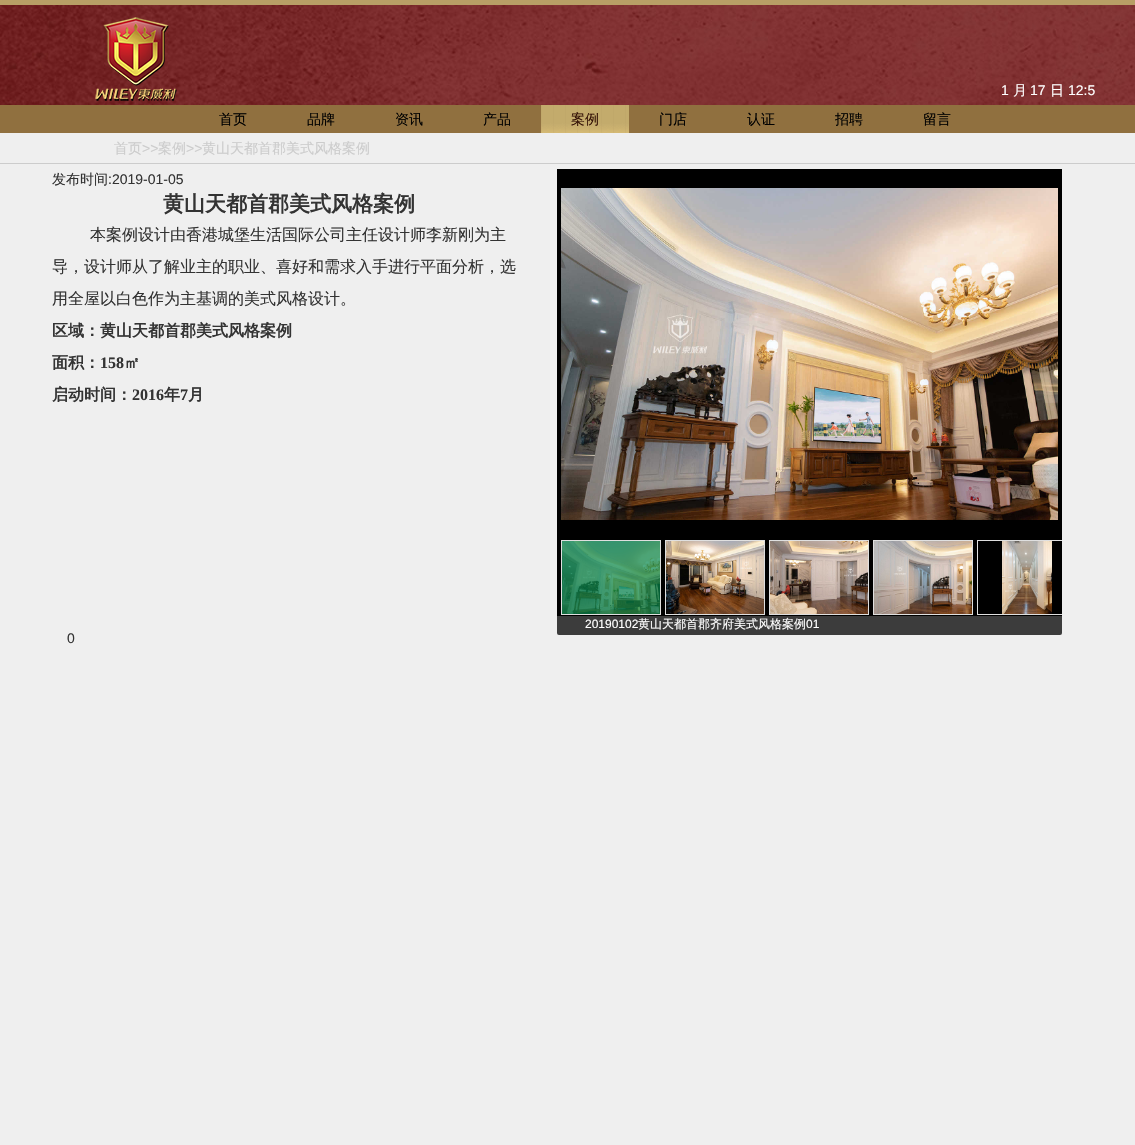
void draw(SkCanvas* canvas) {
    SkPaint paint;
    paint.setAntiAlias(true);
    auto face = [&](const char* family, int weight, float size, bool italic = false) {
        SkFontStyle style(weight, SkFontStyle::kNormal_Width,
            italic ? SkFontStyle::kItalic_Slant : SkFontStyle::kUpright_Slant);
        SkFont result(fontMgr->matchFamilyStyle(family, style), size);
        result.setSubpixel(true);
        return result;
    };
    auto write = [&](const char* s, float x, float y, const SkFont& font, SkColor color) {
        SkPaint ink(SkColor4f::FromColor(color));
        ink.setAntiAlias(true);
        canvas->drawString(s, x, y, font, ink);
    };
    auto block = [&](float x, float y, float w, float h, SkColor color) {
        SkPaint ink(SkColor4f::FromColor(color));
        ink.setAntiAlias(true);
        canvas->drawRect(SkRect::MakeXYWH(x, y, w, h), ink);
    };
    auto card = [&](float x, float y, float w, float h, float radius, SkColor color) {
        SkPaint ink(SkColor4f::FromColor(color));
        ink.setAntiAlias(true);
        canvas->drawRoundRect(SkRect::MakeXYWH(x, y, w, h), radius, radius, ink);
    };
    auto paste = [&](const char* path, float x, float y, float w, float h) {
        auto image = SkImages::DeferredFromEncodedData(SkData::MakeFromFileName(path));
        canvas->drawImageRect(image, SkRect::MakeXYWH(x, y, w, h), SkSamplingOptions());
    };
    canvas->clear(SkColorSetRGB(239, 239, 239));
    paste("pic1.png", 0, 5, 1135, 100);
    block(0, 0, 1135, 5, SkColorSetRGB(184, 159, 102));
    paste("pic2.png", 95, 17, 82, 84);
    auto kFont1 = face("Liberation Sans", 400, 14);
    write("1", 1001, 95, kFont1, SK_ColorWHITE);
    auto kFont2 = face("WenQuanYi Zen Hei", 500, 14);
    write("月", 1013, 95, kFont2, SK_ColorWHITE);
    write("17", 1030, 95, kFont1, SK_ColorWHITE);
    write("日", 1050, 95, kFont2, SK_ColorWHITE);
    write("12:5", 1068, 95, kFont1, SK_ColorWHITE);
    block(0, 105, 1135, 28, SkColorSetRGB(144, 112, 63));
    write("首页", 219, 124, kFont2, SK_ColorBLACK);
    write("品牌", 307, 124, kFont2, SK_ColorBLACK);
    write("资讯", 395, 124, kFont2, SK_ColorBLACK);
    write("产品", 483, 124, kFont2, SK_ColorBLACK);
    paste("pic3.png", 541, 105, 88, 28);
    write("案例", 571, 124, kFont2, SkColorSetRGB(51, 17, 5));
    write("门店", 659, 124, kFont2, SK_ColorBLACK);
    write("认证", 747, 124, kFont2, SK_ColorBLACK);
    write("招聘", 835, 124, kFont2, SK_ColorBLACK);
    write("留言", 923, 124, kFont2, SK_ColorBLACK);
    block(0, 163, 1135, 1, SkColorSetRGB(204, 204, 204));
    write("首页", 114, 153, kFont2, SkColorSetRGB(204, 204, 204));
    write(">>", 142, 153, kFont1, SkColorSetRGB(204, 204, 204));
    write("案例", 158, 153, kFont2, SkColorSetRGB(204, 204, 204));
    write(">>", 186, 153, kFont1, SkColorSetRGB(204, 204, 204));
    write("黄山天都首郡美式风格案例", 202, 153, kFont2, SkColorSetRGB(204, 204, 204));
    write("发布时间", 52, 184, kFont2, SkColorSetRGB(51, 51, 51));
    write(":2019-01-05", 108, 184, kFont1, SkColorSetRGB(51, 51, 51));
    auto kFont3 = face("WenQuanYi Zen Hei", 700, 21);
    write("黄山天都首郡美式风格案例", 163, 211, kFont3, SkColorSetRGB(51, 51, 51));
    auto kFont4 = face("WenQuanYi Zen Hei", 500, 16);
    write("本案例设计由香港城堡生活国际公司主任设计师李新刚为主", 90, 240, kFont4, SkColorSetRGB(51, 51, 51));
    write("导，设计师从了解业主的职业、喜好和需求入手进行平面分析，选", 52, 272, kFont4, SkColorSetRGB(51, 51, 51));
    write("用全屋以白色作为主基调的美式风格设计。", 52, 304, kFont4, SkColorSetRGB(51, 51, 51));
    auto kFont5 = face("WenQuanYi Zen Hei", 700, 16);
    write("区域：黄山天都首郡美式风格案例", 52, 336, kFont5, SkColorSetRGB(51, 51, 51));
    write("面积：", 52, 368, kFont5, SkColorSetRGB(51, 51, 51));
    auto kFont6 = face("Liberation Serif", 700, 16);
    write("158", 100, 368, kFont6, SkColorSetRGB(51, 51, 51));
    write("㎡", 124, 368, kFont5, SkColorSetRGB(51, 51, 51));
    write("启动时间：", 52, 400, kFont5, SkColorSetRGB(51, 51, 51));
    write("2016", 132, 400, kFont6, SkColorSetRGB(51, 51, 51));
    write("年", 164, 400, kFont5, SkColorSetRGB(51, 51, 51));
    write("7", 180, 400, kFont6, SkColorSetRGB(51, 51, 51));
    write("月", 188, 400, kFont5, SkColorSetRGB(51, 51, 51));
    block(557, 169, 505, 447, SK_ColorBLACK);
    card(557, 169, 505, 466, 2, SkColorSetARGB(191, 0, 0, 0));
    paste("pic4.png", 561, 188, 497, 332);
    paint.setColor(SkColorSetRGB(2, 135, 74));
    canvas->drawRect(SkRect::MakeXYWH(561.5f, 540.5f, 99, 74), paint);
    paint.setStyle(SkPaint::kStroke_Style);
    paint.setStrokeWidth(1);
    paint.setColor(SkColorSetRGB(223, 223, 223));
    canvas->drawRect(SkRect::MakeXYWH(561.5f, 540.5f, 99, 74), paint);
    paste("pic5.png", 562, 541, 98, 73);
    canvas->drawRect(SkRect::MakeXYWH(665.5f, 540.5f, 99, 74), paint);
    paste("pic6.png", 666, 541, 98, 73);
    canvas->drawRect(SkRect::MakeXYWH(769.5f, 540.5f, 99, 74), paint);
    paste("pic7.png", 770, 541, 98, 73);
    canvas->drawRect(SkRect::MakeXYWH(873.5f, 540.5f, 99, 74), paint);
    paste("pic8.png", 874, 541, 98, 73);
    canvas->save();
    canvas->clipRect(SkRect::MakeXYWH(557, 540, 505, 76));
    canvas->drawRect(SkRect::MakeXYWH(977.5f, 540.5f, 99, 74), paint);
    canvas->restore();
    paste("pic9.png", 1002, 541, 50, 73);
    auto kFont7 = face("Liberation Sans", 400, 12);
    write("20190102", 585, 628, kFont7, SK_ColorWHITE);
    auto kFont8 = face("WenQuanYi Zen Hei", 500, 12);
    write("黄山天都首郡齐府美式风格案例", 638, 628, kFont8, SK_ColorWHITE);
    write("01", 806, 628, kFont7, SK_ColorWHITE);
    write("0", 67, 643, kFont1, SkColorSetRGB(51, 51, 51));
}
